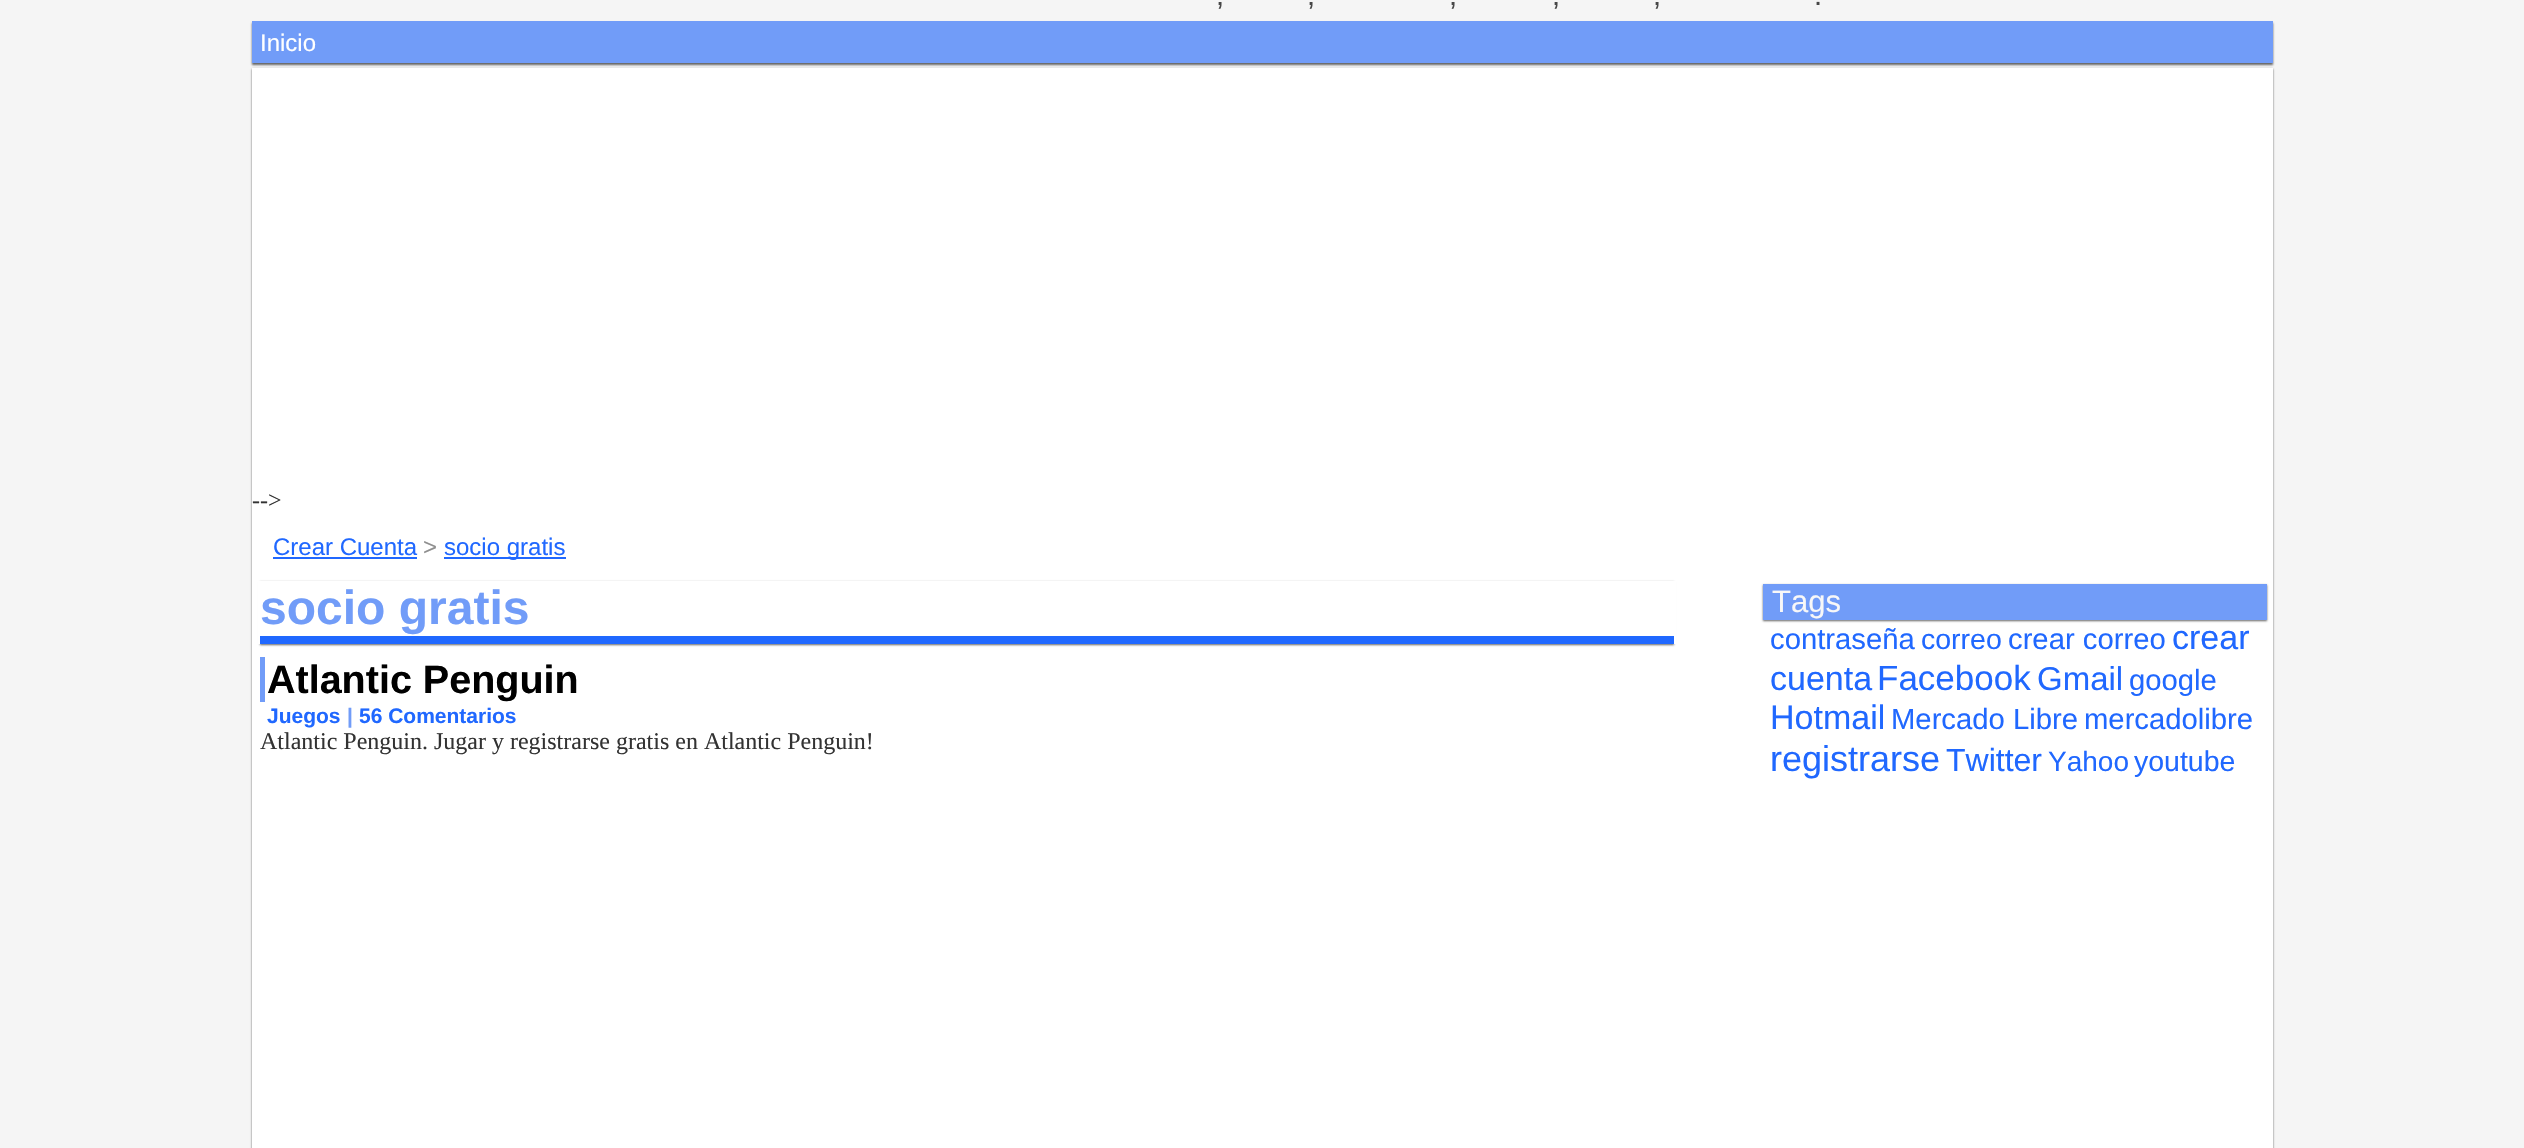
void draw(SkCanvas* canvas) {
    SkPaint paint;
    paint.setAntiAlias(true);
    auto face = [&](const char* family, int weight, float size, bool italic = false) {
        SkFontStyle style(weight, SkFontStyle::kNormal_Width,
            italic ? SkFontStyle::kItalic_Slant : SkFontStyle::kUpright_Slant);
        SkFont result(fontMgr->matchFamilyStyle(family, style), size);
        result.setSubpixel(true);
        return result;
    };
    auto write = [&](const char* s, float x, float y, const SkFont& font, SkColor color) {
        SkPaint ink(SkColor4f::FromColor(color));
        ink.setAntiAlias(true);
        canvas->drawString(s, x, y, font, ink);
    };
    auto block = [&](float x, float y, float w, float h, SkColor color) {
        SkPaint ink(SkColor4f::FromColor(color));
        ink.setAntiAlias(true);
        canvas->drawRect(SkRect::MakeXYWH(x, y, w, h), ink);
    };
    canvas->clear(SkColorSetRGB(245, 245, 245));
    auto kFont1 = face("Liberation Sans", 400, 29);
    write(",", 1216, 5, kFont1, SkColorSetRGB(71, 71, 71));
    write(",", 1307, 5, kFont1, SkColorSetRGB(71, 71, 71));
    write(",", 1449, 5, kFont1, SkColorSetRGB(71, 71, 71));
    write(",", 1552, 5, kFont1, SkColorSetRGB(71, 71, 71));
    write(",", 1653, 5, kFont1, SkColorSetRGB(71, 71, 71));
    write(".", 1814, 5, kFont1, SkColorSetRGB(71, 71, 71));
    paint.setColor(SkColorSetRGB(100, 100, 100));
    paint.setMaskFilter(SkMaskFilter::MakeBlur(kNormal_SkBlurStyle, 1));
    canvas->drawRect(SkRect::MakeXYWH(252, 23, 2021, 42), paint);
    paint.setMaskFilter(nullptr);
    block(252, 21, 2021, 42, SkColorSetRGB(113, 156, 248));
    auto kFont2 = face("Liberation Sans", 400, 24);
    write("Inicio", 260, 51, kFont2, SK_ColorWHITE);
    paint.setMaskFilter(SkMaskFilter::MakeBlur(kNormal_SkBlurStyle, 1));
    canvas->drawRect(SkRect::MakeXYWH(252, 69, 2021, 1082), paint);
    paint.setMaskFilter(nullptr);
    block(252, 68, 2021, 1080, SK_ColorWHITE);
    auto kFont3 = face("Liberation Serif", 400, 24);
    write("-->", 252, 508, kFont3, SkColorSetRGB(51, 51, 51));
    write("Crear Cuenta", 273, 555, kFont2, SkColorSetRGB(32, 104, 255));
    block(273, 557, 144, 2, SkColorSetRGB(32, 104, 255));
    write(">", 423, 555, kFont2, SkColorSetRGB(143, 143, 143));
    block(444, 557, 122, 2, SkColorSetRGB(32, 104, 255));
    write("socio gratis", 444, 555, kFont2, SkColorSetRGB(32, 104, 255));
    canvas->save();
    canvas->clipPath(SkPathBuilder(SkPathFillType::kEvenOdd).moveTo(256, 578).lineTo(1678, 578).lineTo(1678, 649).lineTo(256, 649).close().moveTo(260, 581).lineTo(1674, 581).lineTo(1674, 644).lineTo(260, 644).close().detach(), true);
    paint.setMaskFilter(SkMaskFilter::MakeBlur(kNormal_SkBlurStyle, 1));
    canvas->drawRect(SkRect::MakeXYWH(260, 582, 1414, 63), paint);
    paint.setMaskFilter(nullptr);
    canvas->restore();
    paint.setColor(SK_ColorWHITE);
    canvas->drawPath(SkPathBuilder().moveTo(258, 581).lineTo(258, 644).lineTo(1673, 644).lineTo(260, 644).lineTo(260, 581).close().detach(), paint);
    canvas->drawPath(SkPathBuilder().moveTo(261, 644).lineTo(1676, 644).lineTo(1676, 581).lineTo(1674, 581).lineTo(1674, 644).close().detach(), paint);
    block(260, 636, 1414, 8, SkColorSetRGB(32, 104, 255));
    auto kFont4 = face("Liberation Sans", 700, 48);
    write("socio gratis", 260, 624, kFont4, SkColorSetRGB(113, 156, 248));
    auto kFont5 = face("Liberation Sans", 700, 39.5f);
    write("Atlantic Penguin", 267, 693, kFont5, SK_ColorBLACK);
    block(260, 657, 5, 45, SkColorSetRGB(113, 156, 248));
    auto kFont6 = face("Liberation Sans", 700, 21);
    write("Juegos", 267, 723, kFont6, SkColorSetRGB(32, 104, 255));
    write("|", 347, 723, kFont6, SkColorSetRGB(113, 156, 248));
    write("56 Comentarios", 359, 723, kFont6, SkColorSetRGB(32, 104, 255));
    write("Atlantic Penguin. Jugar y registrarse gratis en Atlantic Penguin!", 260, 749, kFont3, SkColorSetRGB(51, 51, 51));
    paint.setColor(SkColorSetRGB(100, 100, 100));
    paint.setMaskFilter(SkMaskFilter::MakeBlur(kNormal_SkBlurStyle, 1));
    canvas->drawRect(SkRect::MakeXYWH(1763, 585, 504, 36), paint);
    paint.setMaskFilter(nullptr);
    block(1763, 584, 504, 36, SkColorSetRGB(113, 156, 248));
    auto kFont7 = face("Liberation Sans", 400, 31);
    write("Tags", 1772, 612, kFont7, SkColorSetRGB(248, 248, 248));
    auto kFont8 = face("Liberation Sans", 400, 29.25f);
    write("contraseña", 1770, 649, kFont8, SkColorSetRGB(32, 104, 255));
    auto kFont9 = face("Liberation Sans", 400, 28.5f);
    write("correo", 1921, 649, kFont9, SkColorSetRGB(32, 104, 255));
    write("crear correo", 2008, 649, kFont8, SkColorSetRGB(32, 104, 255));
    auto kFont10 = face("Liberation Sans", 400, 34);
    write("crear", 2172, 649, kFont10, SkColorSetRGB(32, 104, 255));
    write("cuenta", 1770, 690, kFont10, SkColorSetRGB(32, 104, 255));
    auto kFont11 = face("Liberation Sans", 400, 35);
    write("Facebook", 1877, 690, kFont11, SkColorSetRGB(32, 104, 255));
    auto kFont12 = face("Liberation Sans", 400, 33);
    write("Gmail", 2037, 690, kFont12, SkColorSetRGB(32, 104, 255));
    write("google", 2129, 690, kFont8, SkColorSetRGB(32, 104, 255));
    write("Hotmail", 1770, 729, kFont10, SkColorSetRGB(32, 104, 255));
    write("Mercado Libre", 1891, 729, kFont8, SkColorSetRGB(32, 104, 255));
    write("mercadolibre", 2084, 729, kFont8, SkColorSetRGB(32, 104, 255));
    auto kFont13 = face("Liberation Sans", 400, 36);
    write("registrarse", 1770, 771, kFont13, SkColorSetRGB(32, 104, 255));
    auto kFont14 = face("Liberation Sans", 400, 32);
    write("Twitter", 1946, 771, kFont14, SkColorSetRGB(32, 104, 255));
    auto kFont15 = face("Liberation Sans", 400, 28);
    write("Yahoo", 2048, 771, kFont15, SkColorSetRGB(32, 104, 255));
    write("youtube", 2134, 771, kFont9, SkColorSetRGB(32, 104, 255));
}
